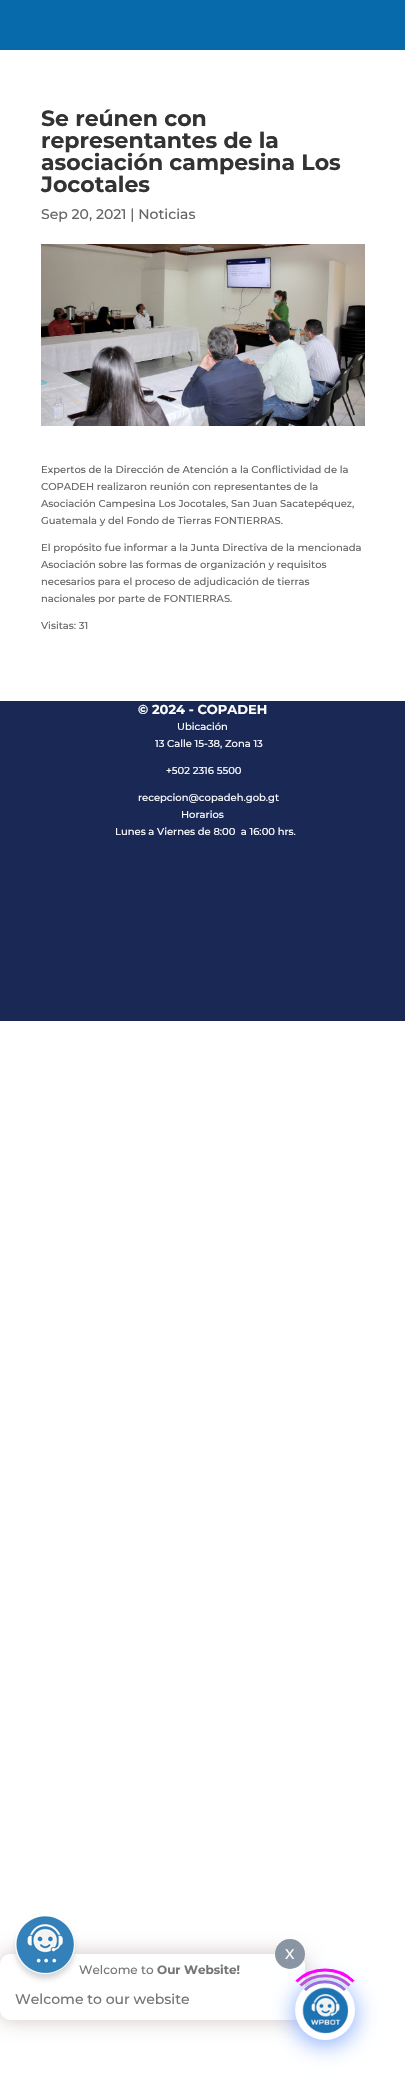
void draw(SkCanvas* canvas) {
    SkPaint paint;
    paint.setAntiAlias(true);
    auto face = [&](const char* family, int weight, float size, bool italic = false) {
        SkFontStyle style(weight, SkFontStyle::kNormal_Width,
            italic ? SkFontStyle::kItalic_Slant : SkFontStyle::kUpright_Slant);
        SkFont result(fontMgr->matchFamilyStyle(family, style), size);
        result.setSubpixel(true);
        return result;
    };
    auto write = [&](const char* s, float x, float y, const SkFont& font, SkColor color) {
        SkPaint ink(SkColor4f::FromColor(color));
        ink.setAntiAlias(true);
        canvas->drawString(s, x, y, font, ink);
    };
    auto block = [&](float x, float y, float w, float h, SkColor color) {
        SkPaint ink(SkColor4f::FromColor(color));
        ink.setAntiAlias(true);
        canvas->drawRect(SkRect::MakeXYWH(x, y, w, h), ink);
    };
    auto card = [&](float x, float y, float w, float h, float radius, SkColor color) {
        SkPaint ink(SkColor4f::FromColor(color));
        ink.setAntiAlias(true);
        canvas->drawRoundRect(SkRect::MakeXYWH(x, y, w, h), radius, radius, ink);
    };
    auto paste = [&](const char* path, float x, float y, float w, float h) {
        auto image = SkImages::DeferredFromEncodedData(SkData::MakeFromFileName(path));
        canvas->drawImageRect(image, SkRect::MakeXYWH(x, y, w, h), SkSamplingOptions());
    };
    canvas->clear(SK_ColorWHITE);
    block(0, 0, 405, 50, SkColorSetRGB(6, 106, 171));
    auto kFont1 = face("Montserrat", 700, 22);
    write("Se reúnen con", 41, 126, kFont1, SkColorSetRGB(51, 51, 51));
    write("representantes de la", 41, 148, kFont1, SkColorSetRGB(51, 51, 51));
    write("asociación campesina Los", 41, 170, kFont1, SkColorSetRGB(51, 51, 51));
    write("Jocotales", 41, 192, kFont1, SkColorSetRGB(51, 51, 51));
    auto kFont2 = face("Montserrat", 500, 14);
    write("Sep 20, 2021 | Noticias", 41, 219, kFont2, SkColorSetRGB(102, 102, 102));
    paste("pic1.png", 41, 244, 324, 182);
    auto kFont3 = face("Montserrat", 500, 10);
    write("Expertos de la Dirección de Atención a la Conflictividad de la", 41, 473, kFont3, SkColorSetRGB(102, 102, 102));
    write("COPADEH realizaron reunión con representantes de la", 41, 490, kFont3, SkColorSetRGB(102, 102, 102));
    write("Asociación Campesina Los Jocotales, San Juan Sacatepéquez,", 41, 507, kFont3, SkColorSetRGB(102, 102, 102));
    write("Guatemala y del Fondo de Tierras FONTIERRAS.", 41, 524, kFont3, SkColorSetRGB(102, 102, 102));
    write("El propósito fue informar a la Junta Directiva de la mencionada", 41, 551, kFont3, SkColorSetRGB(102, 102, 102));
    write("Asociación sobre las formas de organización y requisitos", 41, 568, kFont3, SkColorSetRGB(102, 102, 102));
    write("necesarios para el proceso de adjudicación de tierras", 41, 585, kFont3, SkColorSetRGB(102, 102, 102));
    write("nacionales por parte de FONTIERRAS.", 41, 602, kFont3, SkColorSetRGB(102, 102, 102));
    write("Visitas: 31", 41, 629, kFont3, SkColorSetRGB(102, 102, 102));
    block(0, 701, 405, 320, SkColorSetRGB(25, 40, 84));
    auto kFont4 = face("Montserrat", 700, 13);
    write("© 2024 - COPADEH", 138, 714, kFont4, SK_ColorWHITE);
    write("Ubicación", 177, 730, kFont3, SK_ColorWHITE);
    write("13 Calle 15-38, Zona 13", 155, 747, kFont3, SK_ColorWHITE);
    write("+502 2316 5500", 166, 774, kFont3, SK_ColorWHITE);
    write("recepcion@copadeh.gob.gt", 138, 801, kFont3, SK_ColorWHITE);
    write("Horarios", 181, 818, kFont3, SK_ColorWHITE);
    write("Lunes a Viernes de 8:00  a 16:00 hrs.", 115, 835, kFont3, SK_ColorWHITE);
    paint.setColor(SkColorSetRGB(211, 196, 196));
    paint.setMaskFilter(SkMaskFilter::MakeBlur(kNormal_SkBlurStyle, 10));
    canvas->drawRoundRect(SkRect::MakeXYWH(0, 1954, 305, 66), 10, 10, paint);
    paint.setMaskFilter(nullptr);
    card(0, 1954, 305, 66, 10, SK_ColorWHITE);
    paint.setColor(SkColorSetRGB(138, 149, 163));
    canvas->drawCircle(290, 1954, 15, paint);
    write("X", 285, 1959, kFont2, SK_ColorWHITE);
    paint.setColor(SkColorSetRGB(217, 217, 217));
    paint.setMaskFilter(SkMaskFilter::MakeBlur(kNormal_SkBlurStyle, 2.5f));
    canvas->drawRoundRect(SkRect::MakeXYWH(15, 1919, 60, 60), 30, 30, paint);
    paint.setMaskFilter(nullptr);
    paint.setColor(SK_ColorWHITE);
    canvas->drawCircle(45, 1944, 30, paint);
    paste("pic2.png", 16, 1916, 58, 57);
    auto kFont5 = face("Montserrat", 500, 12);
    write("Welcome to", 79, 1974, kFont5, SkColorSetRGB(117, 117, 117));
    auto kFont6 = face("Montserrat", 700, 12);
    write("Our Website!", 157, 1974, kFont6, SkColorSetRGB(117, 117, 117));
    write("Welcome to our website", 15, 2004, kFont2, SkColorSetRGB(117, 117, 117));
    paint.setColor(SkColorSetARGB(128, 0, 77, 255));
    paint.setMaskFilter(SkMaskFilter::MakeBlur(kNormal_SkBlurStyle, 12));
    canvas->drawRoundRect(SkRect::MakeXYWH(295, 1984, 60, 60), 30, 30, paint);
    paint.setMaskFilter(nullptr);
    paint.setColor(SK_ColorWHITE);
    canvas->drawCircle(325, 2010, 30, paint);
    paste("pic3.png", 302, 1987, 47, 47);
    paint.setStyle(SkPaint::kStroke_Style);
    paint.setStrokeWidth(3);
    paint.setColor(SkColorSetRGB(147, 112, 219));
    canvas->drawPath(SkPathBuilder().moveTo(305, 1990).cubicTo(316, 1979, 334, 1979, 345, 1990).detach(), paint);
    paint.setColor(SkColorSetRGB(186, 85, 211));
    canvas->drawPath(SkPathBuilder().moveTo(300.5f, 1985.5f).cubicTo(314, 1972.5f, 336, 1972.5f, 349.5f, 1985.5f).detach(), paint);
    paint.setColor(SkColorSetRGB(255, 0, 255));
    canvas->drawPath(SkPathBuilder().moveTo(296.5f, 1981.5f).cubicTo(312, 1966, 338, 1966, 353.5f, 1981.5f).detach(), paint);
}
